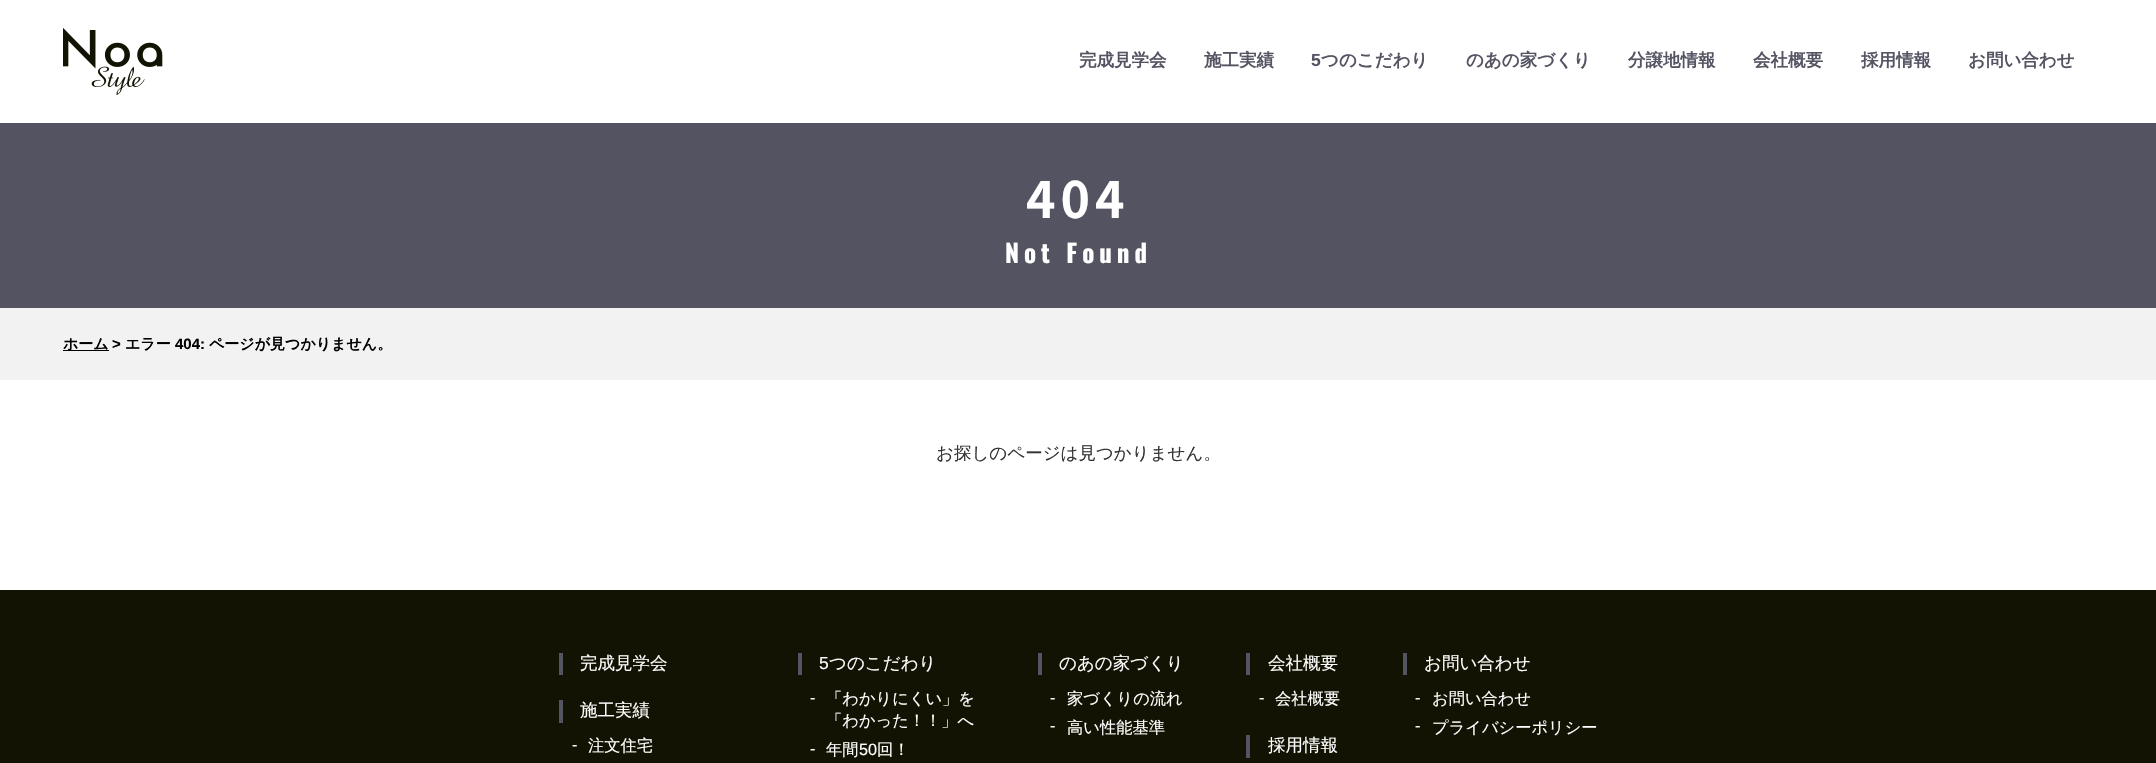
void draw(SkCanvas* canvas) {
    SkPaint paint;
    paint.setAntiAlias(true);
    auto face = [&](const char* family, int weight, float size, bool italic = false) {
        SkFontStyle style(weight, SkFontStyle::kNormal_Width,
            italic ? SkFontStyle::kItalic_Slant : SkFontStyle::kUpright_Slant);
        SkFont result(fontMgr->matchFamilyStyle(family, style), size);
        result.setSubpixel(true);
        return result;
    };
    auto write = [&](const char* s, float x, float y, const SkFont& font, SkColor color) {
        SkPaint ink(SkColor4f::FromColor(color));
        ink.setAntiAlias(true);
        canvas->drawString(s, x, y, font, ink);
    };
    auto writeSpaced = [&](const char* s, float x, float y, const SkFont& font, const SkPaint& ink, float letter, float word) {
        std::vector<SkGlyphID> glyphs(font.countText(s, strlen(s), SkTextEncoding::kUTF8));
        std::vector<float> xs(glyphs.size());
        font.textToGlyphs(s, strlen(s), SkTextEncoding::kUTF8, glyphs);
        font.getXPos(glyphs, xs, x);
        float extra = 0;
        for (size_t i = 0; i < glyphs.size(); i++) {
            xs[i] += extra;
            extra += letter + word * (glyphs[i] == font.unicharToGlyph(' '));
        }
        canvas->drawTextBlob(SkTextBlob::MakeFromPosHGlyphs(glyphs, xs, y, font), 0, 0, ink);
    };
    auto block = [&](float x, float y, float w, float h, SkColor color) {
        SkPaint ink(SkColor4f::FromColor(color));
        ink.setAntiAlias(true);
        canvas->drawRect(SkRect::MakeXYWH(x, y, w, h), ink);
    };
    auto paste = [&](const char* path, float x, float y, float w, float h) {
        auto image = SkImages::DeferredFromEncodedData(SkData::MakeFromFileName(path));
        canvas->drawImageRect(image, SkRect::MakeXYWH(x, y, w, h), SkSamplingOptions());
    };
    canvas->clear(SK_ColorWHITE);
    paste("pic1.png", 63, 28, 100, 67);
    auto kFont1 = face("WenQuanYi Zen Hei", 700, 17.5f);
    write("完成見学会", 1079, 66, kFont1, SkColorSetRGB(84, 84, 99));
    write("施工実績", 1204, 66, kFont1, SkColorSetRGB(84, 84, 99));
    auto kFont2 = face("Liberation Sans", 700, 17.5f);
    write("5", 1311, 66, kFont2, SkColorSetRGB(84, 84, 99));
    write("つのこだわり", 1321, 66, kFont1, SkColorSetRGB(84, 84, 99));
    write("のあの家づくり", 1466, 66, kFont1, SkColorSetRGB(84, 84, 99));
    write("分譲地情報", 1628, 66, kFont1, SkColorSetRGB(84, 84, 99));
    write("会社概要", 1753, 66, kFont1, SkColorSetRGB(84, 84, 99));
    write("採用情報", 1861, 66, kFont1, SkColorSetRGB(84, 84, 99));
    write("お問い合わせ", 1968, 66, kFont1, SkColorSetRGB(84, 84, 99));
    block(0, 123, 2156, 185, SkColorSetRGB(83, 83, 98));
    auto kFont3 = face("Noto Sans JP", 700, 50);
    paint.setColor(SK_ColorWHITE);
    writeSpaced("404", 1026, 218, kFont3, paint, 5, 0);
    auto kFont4 = face("Oswald", 700, 25);
    writeSpaced("Not Found", 1005, 263, kFont4, paint, 5, 0);
    block(0, 308, 2156, 72, SkColorSetRGB(242, 242, 242));
    block(63, 350, 46, 1, SK_ColorBLACK);
    auto kFont5 = face("WenQuanYi Zen Hei", 700, 15);
    write("ホーム", 63, 349, kFont5, SK_ColorBLACK);
    auto kFont6 = face("Liberation Sans", 700, 15);
    write(">", 112, 349, kFont6, SK_ColorBLACK);
    write("エラー", 125, 349, kFont5, SK_ColorBLACK);
    write("404:", 175, 349, kFont6, SK_ColorBLACK);
    write("ページが見つかりません。", 209, 349, kFont5, SK_ColorBLACK);
    auto kFont7 = face("WenQuanYi Zen Hei", 500, 17.5f);
    write("お探しのページは見つかりません。", 936, 459, kFont7, SkColorSetRGB(51, 51, 51));
    block(0, 590, 2156, 173, SkColorSetRGB(19, 19, 4));
    block(559, 653, 4, 22, SkColorSetRGB(84, 84, 99));
    write("完成見学会", 580, 669, kFont7, SK_ColorWHITE);
    block(559, 700, 4, 23, SkColorSetRGB(84, 84, 99));
    write("施工実績", 580, 716, kFont7, SK_ColorWHITE);
    auto kFont8 = face("Liberation Sans", 400, 16.25f);
    write("-", 572, 750, kFont8, SK_ColorWHITE);
    auto kFont9 = face("WenQuanYi Zen Hei", 500, 16.25f);
    write("注文住宅", 588, 751, kFont9, SK_ColorWHITE);
    block(798, 653, 4, 22, SkColorSetRGB(84, 84, 99));
    auto kFont10 = face("Liberation Sans", 400, 17.5f);
    write("5", 819, 669, kFont10, SK_ColorWHITE);
    write("つのこだわり", 829, 669, kFont7, SK_ColorWHITE);
    write("-", 810, 703, kFont8, SK_ColorWHITE);
    write("「わかりにくい」を", 826, 704, kFont9, SK_ColorWHITE);
    write("「わかった！！」へ", 826, 726, kFont9, SK_ColorWHITE);
    write("-", 810, 754, kFont8, SK_ColorWHITE);
    write("年間", 826, 755, kFont9, SK_ColorWHITE);
    write("50", 859, 755, kFont8, SK_ColorWHITE);
    write("回！", 877, 755, kFont9, SK_ColorWHITE);
    block(1038, 653, 4, 22, SkColorSetRGB(84, 84, 99));
    write("のあの家づくり", 1059, 669, kFont7, SK_ColorWHITE);
    write("-", 1050, 703, kFont8, SK_ColorWHITE);
    write("家づくりの流れ", 1067, 704, kFont9, SK_ColorWHITE);
    write("-", 1050, 731, kFont8, SK_ColorWHITE);
    write("高い性能基準", 1067, 733, kFont9, SK_ColorWHITE);
    block(1246, 653, 4, 22, SkColorSetRGB(84, 84, 99));
    write("会社概要", 1268, 669, kFont7, SK_ColorWHITE);
    write("-", 1259, 703, kFont8, SK_ColorWHITE);
    write("会社概要", 1275, 704, kFont9, SK_ColorWHITE);
    block(1246, 735, 4, 23, SkColorSetRGB(84, 84, 99));
    write("採用情報", 1268, 751, kFont7, SK_ColorWHITE);
    block(1403, 653, 4, 22, SkColorSetRGB(84, 84, 99));
    write("お問い合わせ", 1424, 669, kFont7, SK_ColorWHITE);
    write("-", 1415, 703, kFont8, SK_ColorWHITE);
    write("お問い合わせ", 1432, 704, kFont9, SK_ColorWHITE);
    write("-", 1415, 731, kFont8, SK_ColorWHITE);
    write("プライバシーポリシー", 1432, 733, kFont9, SK_ColorWHITE);
}
